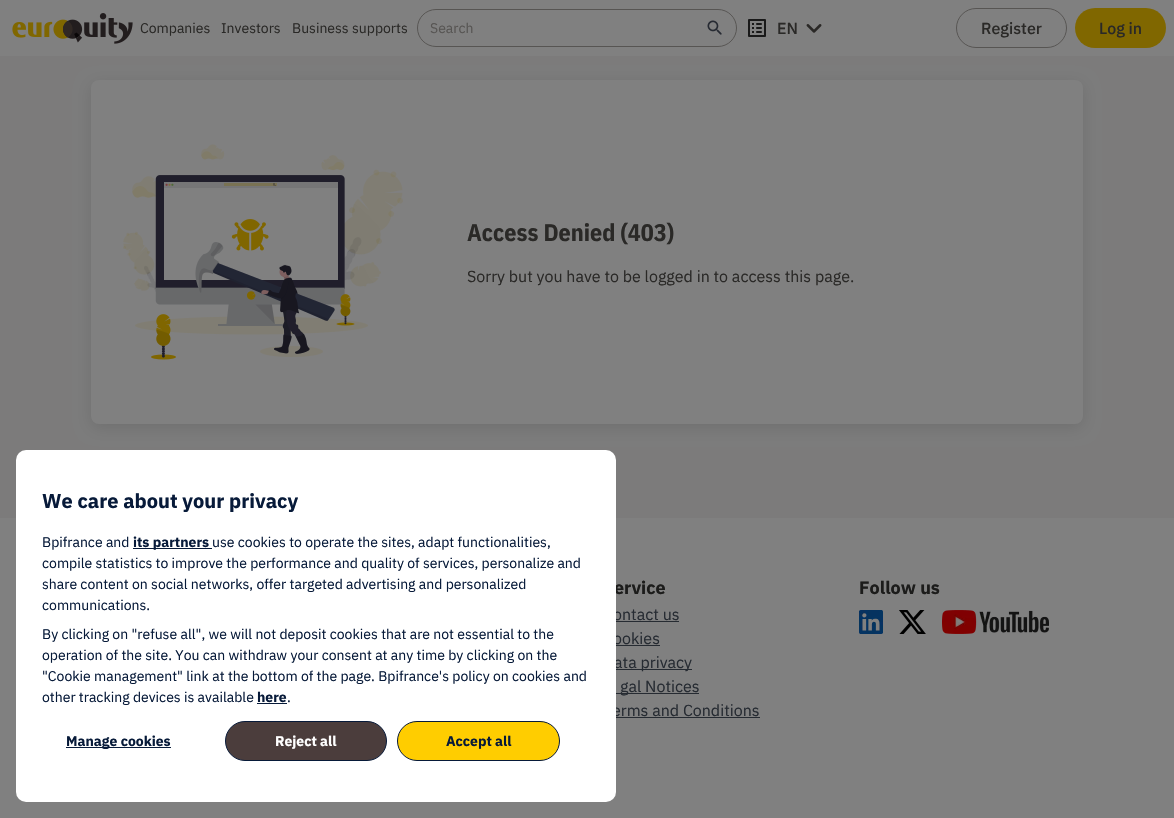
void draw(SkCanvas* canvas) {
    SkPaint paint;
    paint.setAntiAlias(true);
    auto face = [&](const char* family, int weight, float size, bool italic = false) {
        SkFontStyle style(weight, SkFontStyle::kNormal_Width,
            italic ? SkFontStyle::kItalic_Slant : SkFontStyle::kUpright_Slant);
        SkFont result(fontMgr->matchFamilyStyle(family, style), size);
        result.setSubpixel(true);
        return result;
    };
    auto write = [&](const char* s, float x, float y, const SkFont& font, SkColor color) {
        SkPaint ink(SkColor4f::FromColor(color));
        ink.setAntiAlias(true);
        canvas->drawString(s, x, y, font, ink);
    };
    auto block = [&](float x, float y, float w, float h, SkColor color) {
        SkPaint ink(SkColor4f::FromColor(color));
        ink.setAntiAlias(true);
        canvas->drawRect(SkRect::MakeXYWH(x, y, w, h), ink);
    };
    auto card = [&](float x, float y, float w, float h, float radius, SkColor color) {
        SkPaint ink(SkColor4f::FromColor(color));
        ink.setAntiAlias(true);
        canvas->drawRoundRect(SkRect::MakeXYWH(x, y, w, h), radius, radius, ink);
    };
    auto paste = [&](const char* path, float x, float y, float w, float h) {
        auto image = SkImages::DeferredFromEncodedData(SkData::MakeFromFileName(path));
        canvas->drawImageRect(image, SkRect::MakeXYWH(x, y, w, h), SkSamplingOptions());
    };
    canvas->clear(SkColorSetRGB(124, 123, 123));
    block(0, 0, 1174, 56, SkColorSetRGB(128, 128, 128));
    paste("pic1.png", 12, 13, 121, 31);
    auto kFont1 = face("IBM Plex Sans", 400, 14);
    write("Companies", 140, 33, kFont1, SkColorSetRGB(42, 41, 39));
    write("Investors", 221, 33, kFont1, SkColorSetRGB(42, 41, 39));
    write("Business supports", 292, 33, kFont1, SkColorSetRGB(42, 41, 39));
    paint.setStyle(SkPaint::kStroke_Style);
    paint.setStrokeWidth(1);
    paint.setColor(SkColorSetRGB(87, 85, 83));
    canvas->drawRoundRect(SkRect::MakeXYWH(417.5f, 9.5f, 319, 37), 18.5f, 18.5f, paint);
    write("Search", 430, 33, kFont1, SkColorSetRGB(87, 85, 83));
    paste("pic2.png", 707, 20, 15, 15);
    paste("pic3.png", 748, 19, 18, 18);
    auto kFont2 = face("IBM Plex Sans", 500, 16);
    write("EN", 777, 34, kFont2, SkColorSetRGB(42, 41, 39));
    paste("pic4.png", 806, 24, 16, 9);
    canvas->drawRoundRect(SkRect::MakeXYWH(956.5f, 8.5f, 110, 39), 19.5f, 19.5f, paint);
    write("Register", 981, 34, kFont2, SkColorSetRGB(42, 41, 39));
    card(1075, 8, 91, 40, 20, SkColorSetRGB(128, 103, 0));
    write("Log in", 1099, 34, kFont2, SkColorSetRGB(42, 41, 39));
    paint.setStyle(SkPaint::kFill_Style);
    paint.setColor(SkColorSetARGB(26, 1, 6, 14));
    paint.setMaskFilter(SkMaskFilter::MakeBlur(kNormal_SkBlurStyle, 8));
    canvas->drawRoundRect(SkRect::MakeXYWH(91, 84, 992, 344), 8, 8, paint);
    paint.setMaskFilter(nullptr);
    card(91, 80, 992, 344, 8, SkColorSetRGB(128, 128, 128));
    paste("pic5.png", 123, 144, 280, 216);
    auto kFont3 = face("IBM Plex Sans Condensed", 700, 24);
    write("Access Denied (403)", 467, 241, kFont3, SkColorSetRGB(42, 41, 39));
    auto kFont4 = face("IBM Plex Sans", 400, 16);
    write("Sorry but you have to be logged in to access this page.", 467, 282, kFont4, SkColorSetRGB(42, 41, 39));
    block(0, 518, 1174, 300, SkColorSetRGB(128, 128, 128));
    auto kFont5 = face("IBM Plex Sans", 700, 18);
    write("ervice", 614, 594, kFont5, SkColorSetRGB(28, 28, 27));
    write("ontact us", 613, 620, kFont4, SkColorSetRGB(38, 43, 50));
    block(616, 621, 63, 1, SkColorSetRGB(38, 43, 50));
    write("ookies", 613, 644, kFont4, SkColorSetRGB(38, 43, 50));
    block(616, 645, 44, 1, SkColorSetRGB(38, 43, 50));
    block(616, 669, 76, 1, SkColorSetRGB(38, 43, 50));
    write("ata privacy", 614, 668, kFont4, SkColorSetRGB(38, 43, 50));
    block(616, 693, 83, 1, SkColorSetRGB(38, 43, 50));
    write("gal Notices", 620, 692, kFont4, SkColorSetRGB(38, 43, 50));
    write("erms and Conditions", 612, 716, kFont4, SkColorSetRGB(38, 43, 50));
    block(616, 717, 144, 1, SkColorSetRGB(38, 43, 50));
    write("Follow us", 859, 594, kFont5, SkColorSetRGB(28, 28, 27));
    paste("pic6.png", 859, 610, 24, 24);
    paste("pic7.png", 899, 610, 27, 24);
    paste("pic8.png", 942, 610, 107, 24);
    card(16, 450, 600, 352, 10, SK_ColorWHITE);
    auto kFont6 = face("IBM Plex Sans", 700, 20);
    write("We care about your privacy", 42, 508, kFont6, SkColorSetRGB(7, 26, 57));
    write("Bpifrance and", 42, 547, kFont1, SkColorSetRGB(7, 26, 57));
    block(133, 548, 79, 1, SkColorSetRGB(7, 26, 57));
    auto kFont7 = face("IBM Plex Sans", 700, 14);
    write("its partners", 133, 547, kFont7, SkColorSetRGB(7, 26, 57));
    write("use cookies to operate the sites, adapt functionalities,", 212, 547, kFont1, SkColorSetRGB(7, 26, 57));
    write("compile statistics to improve the performance and quality of services, personalize and", 42, 568, kFont1, SkColorSetRGB(7, 26, 57));
    write("share content on social networks, offer targeted advertising and personalized", 42, 589, kFont1, SkColorSetRGB(7, 26, 57));
    write("communications.", 42, 610, kFont1, SkColorSetRGB(7, 26, 57));
    write("By clicking on \"refuse all\", we will not deposit cookies that are not essential to the", 42, 639, kFont1, SkColorSetRGB(7, 26, 57));
    write("operation of the site. You can withdraw your consent at any time by clicking on the", 42, 660, kFont1, SkColorSetRGB(7, 26, 57));
    write("\"Cookie management\" link at the bottom of the page. Bpifrance's policy on cookies and", 42, 681, kFont1, SkColorSetRGB(7, 26, 57));
    write("other tracking devices is available", 42, 702, kFont1, SkColorSetRGB(7, 26, 57));
    write("here", 257, 702, kFont7, SkColorSetRGB(7, 26, 57));
    block(257, 703, 30, 1, SkColorSetRGB(7, 26, 57));
    write(".", 287, 702, kFont1, SkColorSetRGB(7, 26, 57));
    block(66, 747, 105, 1, SkColorSetRGB(7, 26, 57));
    write("Manage cookies", 66, 746, kFont7, SkColorSetRGB(7, 26, 57));
    paint.setColor(SkColorSetRGB(75, 61, 60));
    canvas->drawRoundRect(SkRect::MakeXYWH(225.5f, 721.5f, 161, 39), 19.5f, 19.5f, paint);
    paint.setStyle(SkPaint::kStroke_Style);
    paint.setColor(SkColorSetRGB(7, 26, 57));
    canvas->drawRoundRect(SkRect::MakeXYWH(225.5f, 721.5f, 161, 39), 19.5f, 19.5f, paint);
    write("Reject all", 275, 746, kFont7, SK_ColorWHITE);
    paint.setStyle(SkPaint::kFill_Style);
    paint.setColor(SkColorSetRGB(255, 205, 0));
    canvas->drawRoundRect(SkRect::MakeXYWH(397.5f, 721.5f, 162, 39), 19.5f, 19.5f, paint);
    paint.setStyle(SkPaint::kStroke_Style);
    paint.setColor(SkColorSetRGB(7, 26, 57));
    canvas->drawRoundRect(SkRect::MakeXYWH(397.5f, 721.5f, 162, 39), 19.5f, 19.5f, paint);
    write("Accept all", 446, 746, kFont7, SkColorSetRGB(7, 26, 57));
}
